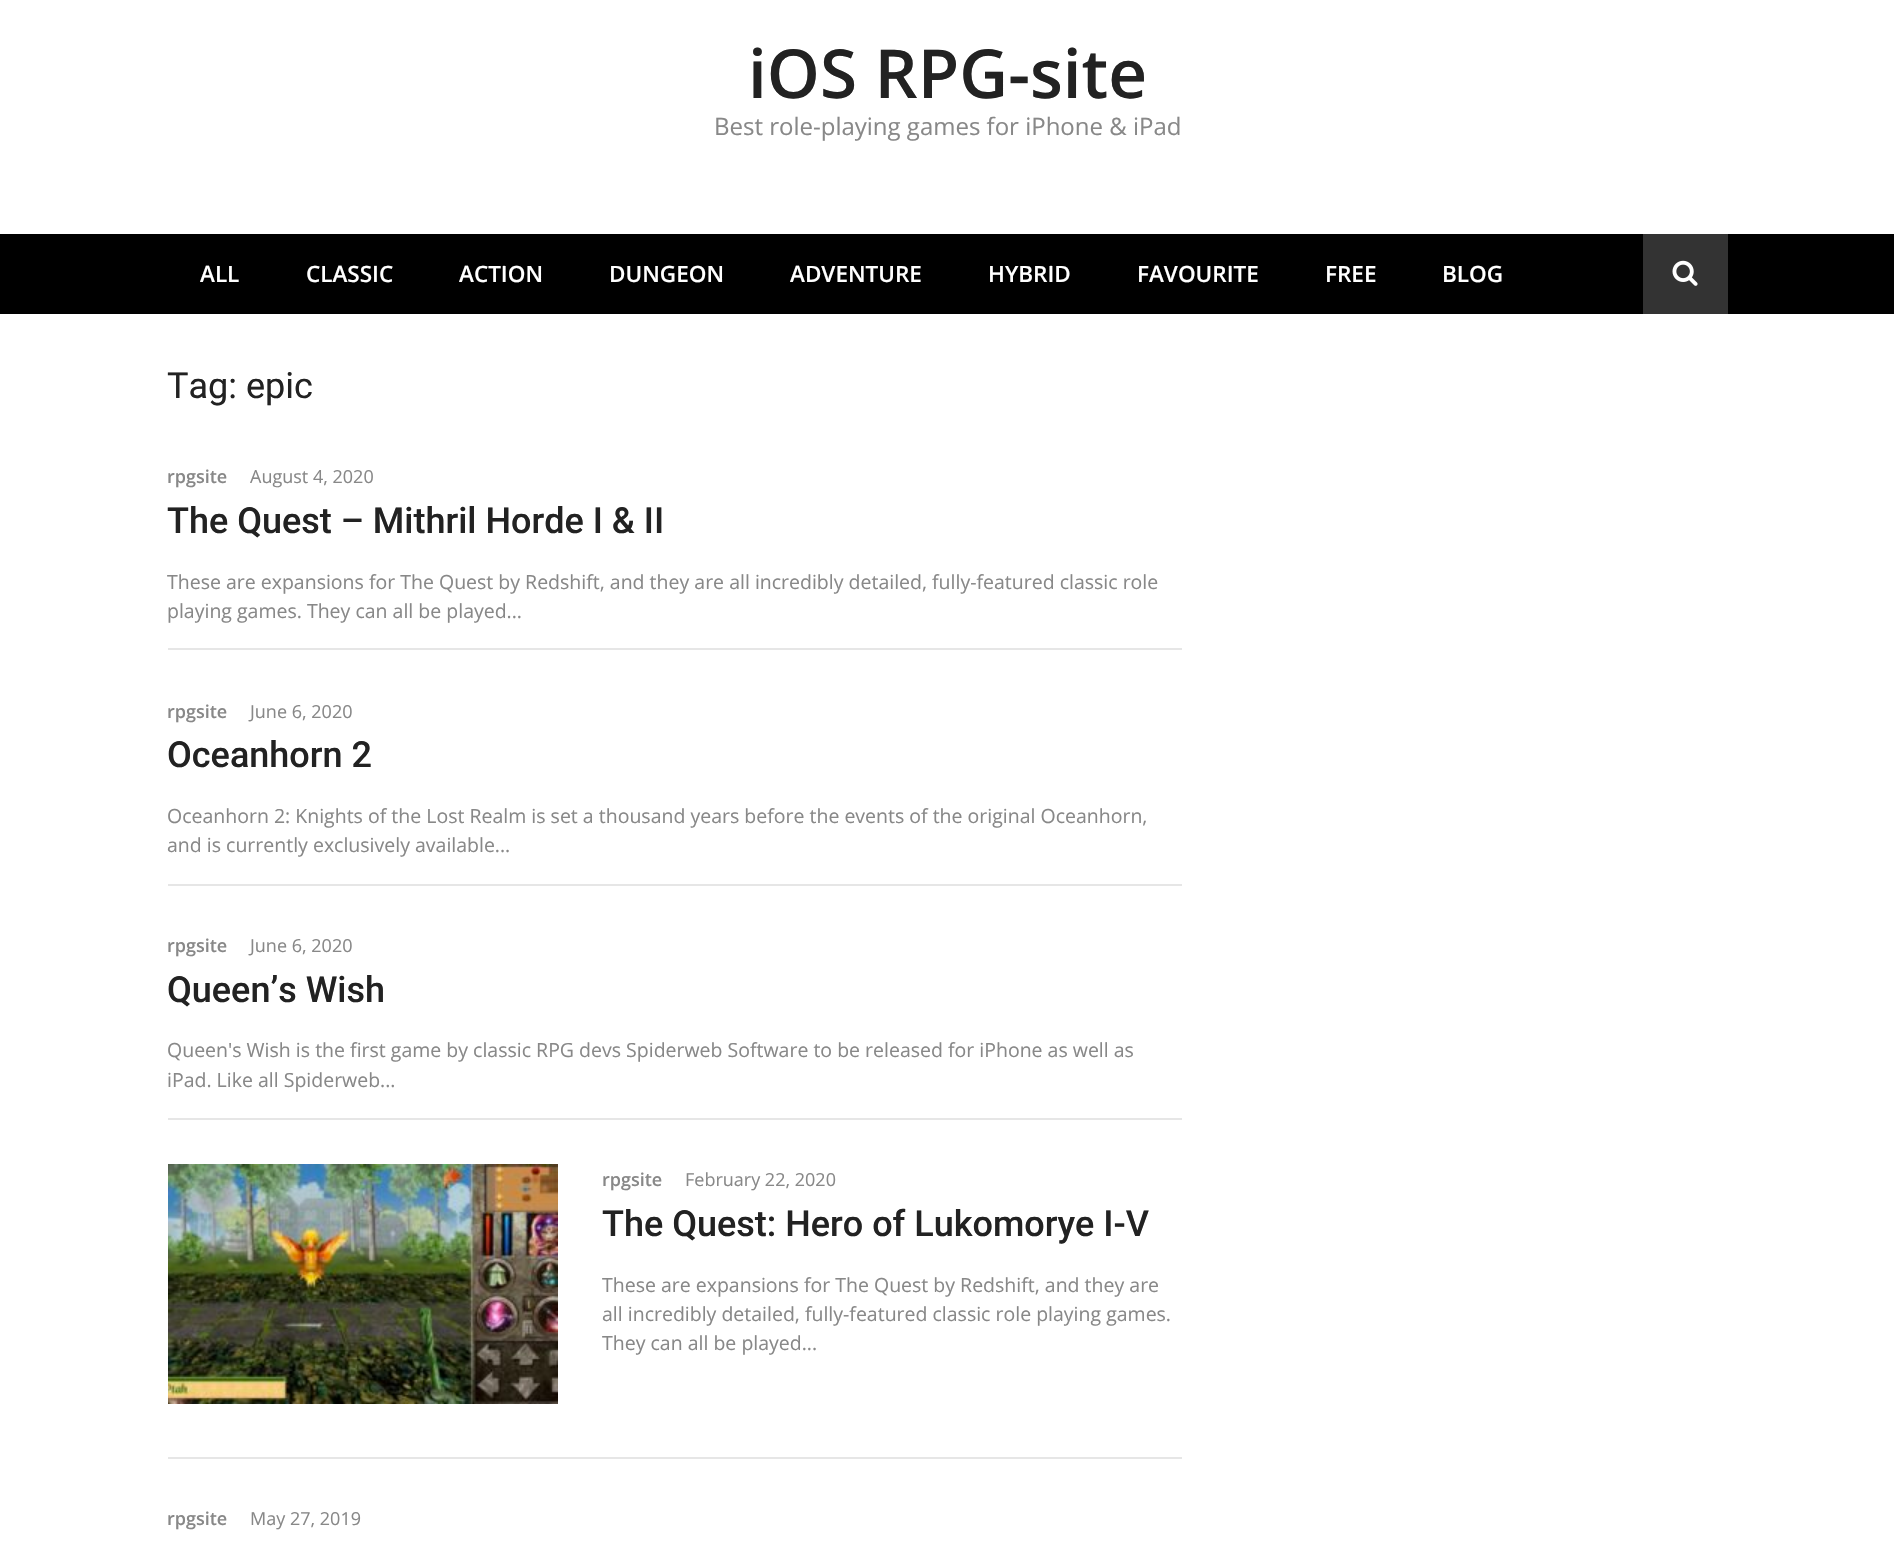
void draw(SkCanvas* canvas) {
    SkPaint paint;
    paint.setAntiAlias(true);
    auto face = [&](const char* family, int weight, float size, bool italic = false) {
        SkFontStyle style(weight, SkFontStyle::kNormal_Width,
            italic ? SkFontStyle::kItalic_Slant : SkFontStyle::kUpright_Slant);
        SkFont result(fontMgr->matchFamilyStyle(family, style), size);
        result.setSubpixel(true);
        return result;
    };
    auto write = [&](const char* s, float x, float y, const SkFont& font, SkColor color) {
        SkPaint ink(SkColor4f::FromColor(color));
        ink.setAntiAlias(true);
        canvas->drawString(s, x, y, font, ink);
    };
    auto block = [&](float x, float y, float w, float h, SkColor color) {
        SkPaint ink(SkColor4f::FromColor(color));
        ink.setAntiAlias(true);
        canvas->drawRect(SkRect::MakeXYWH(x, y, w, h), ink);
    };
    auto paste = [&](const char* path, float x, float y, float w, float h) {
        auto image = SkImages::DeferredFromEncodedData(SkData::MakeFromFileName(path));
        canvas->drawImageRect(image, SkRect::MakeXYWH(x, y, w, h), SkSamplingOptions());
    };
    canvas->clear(SK_ColorWHITE);
    auto kFont1 = face("Open Sans", 600, 67.5f);
    write("iOS RPG-site", 748, 98, kFont1, SkColorSetRGB(34, 34, 34));
    auto kFont2 = face("Open Sans", 400, 24);
    write("Best role-playing games for iPhone & iPad", 714, 135, kFont2, SkColorSetRGB(136, 136, 136));
    block(0, 234, 1894, 80, SK_ColorBLACK);
    auto kFont3 = face("Open Sans", 600, 22.5f);
    write("ALL", 200, 282, kFont3, SK_ColorWHITE);
    write("CLASSIC", 306, 282, kFont3, SK_ColorWHITE);
    write("ACTION", 459, 282, kFont3, SK_ColorWHITE);
    write("DUNGEON", 609, 282, kFont3, SK_ColorWHITE);
    write("ADVENTURE", 790, 282, kFont3, SK_ColorWHITE);
    write("HYBRID", 988, 282, kFont3, SK_ColorWHITE);
    write("FAVOURITE", 1137, 282, kFont3, SK_ColorWHITE);
    write("FREE", 1325, 282, kFont3, SK_ColorWHITE);
    write("BLOG", 1442, 282, kFont3, SK_ColorWHITE);
    block(1643, 234, 85, 80, SkColorSetRGB(51, 51, 51));
    paste("pic1.png", 1672, 260, 26, 26);
    auto kFont4 = face("Roboto", 400, 36);
    write("Tag: epic", 167, 398, kFont4, SkColorSetRGB(34, 34, 34));
    block(168, 648, 1014, 2, SkColorSetRGB(230, 230, 230));
    auto kFont5 = face("Open Sans", 600, 18);
    write("rpgsite", 167, 483, kFont5, SkColorSetRGB(136, 136, 136));
    auto kFont6 = face("Open Sans", 400, 18);
    write("August 4, 2020", 250, 483, kFont6, SkColorSetRGB(136, 136, 136));
    auto kFont7 = face("Roboto", 500, 36);
    write("The Quest – Mithril Horde I & II", 167, 533, kFont7, SkColorSetRGB(34, 34, 34));
    auto kFont8 = face("Open Sans", 400, 19.5f);
    write("These are expansions for The Quest by Redshift, and they are all incredibly detailed, fully-featured classic role", 167, 589, kFont8, SkColorSetRGB(136, 136, 136));
    write("playing games. They can all be played...", 167, 618, kFont8, SkColorSetRGB(136, 136, 136));
    block(168, 884, 1014, 2, SkColorSetRGB(230, 230, 230));
    write("rpgsite", 167, 718, kFont5, SkColorSetRGB(136, 136, 136));
    write("June 6, 2020", 250, 718, kFont6, SkColorSetRGB(136, 136, 136));
    write("Oceanhorn 2", 167, 767, kFont7, SkColorSetRGB(34, 34, 34));
    write("Oceanhorn 2: Knights of the Lost Realm is set a thousand years before the events of the original Oceanhorn,", 167, 823, kFont8, SkColorSetRGB(136, 136, 136));
    write("and is currently exclusively available...", 167, 852, kFont8, SkColorSetRGB(136, 136, 136));
    block(168, 1118, 1014, 2, SkColorSetRGB(230, 230, 230));
    write("rpgsite", 167, 952, kFont5, SkColorSetRGB(136, 136, 136));
    write("June 6, 2020", 250, 952, kFont6, SkColorSetRGB(136, 136, 136));
    write("Queen’s Wish", 167, 1002, kFont7, SkColorSetRGB(34, 34, 34));
    write("Queen's Wish is the first game by classic RPG devs Spiderweb Software to be released for iPhone as well as", 167, 1057, kFont8, SkColorSetRGB(136, 136, 136));
    write("iPad. Like all Spiderweb...", 167, 1087, kFont8, SkColorSetRGB(136, 136, 136));
    block(168, 1457, 1014, 2, SkColorSetRGB(230, 230, 230));
    paste("pic2.png", 168, 1164, 390, 240);
    write("rpgsite", 602, 1186, kFont5, SkColorSetRGB(136, 136, 136));
    write("February 22, 2020", 685, 1186, kFont6, SkColorSetRGB(136, 136, 136));
    write("The Quest: Hero of Lukomorye I-V", 602, 1236, kFont7, SkColorSetRGB(34, 34, 34));
    write("These are expansions for The Quest by Redshift, and they are", 602, 1292, kFont8, SkColorSetRGB(136, 136, 136));
    write("all incredibly detailed, fully-featured classic role playing games.", 602, 1321, kFont8, SkColorSetRGB(136, 136, 136));
    write("They can all be played...", 602, 1350, kFont8, SkColorSetRGB(136, 136, 136));
    write("rpgsite", 167, 1525, kFont5, SkColorSetRGB(136, 136, 136));
    write("May 27, 2019", 250, 1525, kFont6, SkColorSetRGB(136, 136, 136));
}
